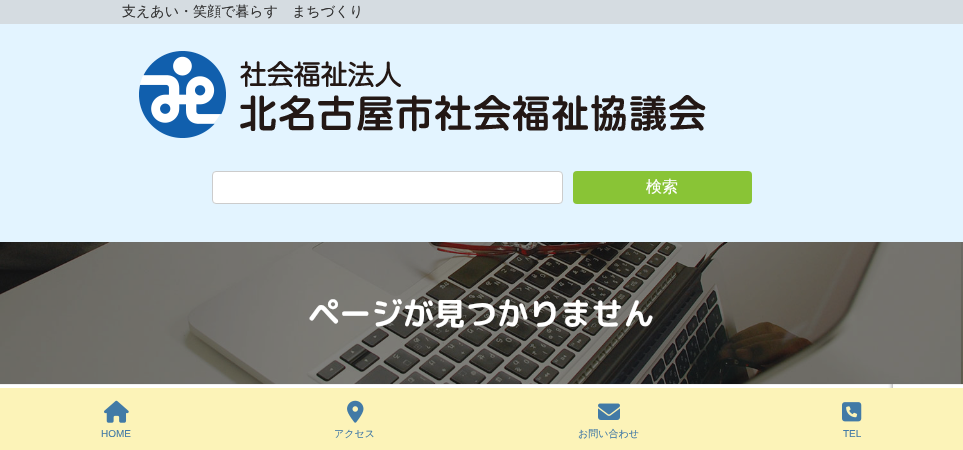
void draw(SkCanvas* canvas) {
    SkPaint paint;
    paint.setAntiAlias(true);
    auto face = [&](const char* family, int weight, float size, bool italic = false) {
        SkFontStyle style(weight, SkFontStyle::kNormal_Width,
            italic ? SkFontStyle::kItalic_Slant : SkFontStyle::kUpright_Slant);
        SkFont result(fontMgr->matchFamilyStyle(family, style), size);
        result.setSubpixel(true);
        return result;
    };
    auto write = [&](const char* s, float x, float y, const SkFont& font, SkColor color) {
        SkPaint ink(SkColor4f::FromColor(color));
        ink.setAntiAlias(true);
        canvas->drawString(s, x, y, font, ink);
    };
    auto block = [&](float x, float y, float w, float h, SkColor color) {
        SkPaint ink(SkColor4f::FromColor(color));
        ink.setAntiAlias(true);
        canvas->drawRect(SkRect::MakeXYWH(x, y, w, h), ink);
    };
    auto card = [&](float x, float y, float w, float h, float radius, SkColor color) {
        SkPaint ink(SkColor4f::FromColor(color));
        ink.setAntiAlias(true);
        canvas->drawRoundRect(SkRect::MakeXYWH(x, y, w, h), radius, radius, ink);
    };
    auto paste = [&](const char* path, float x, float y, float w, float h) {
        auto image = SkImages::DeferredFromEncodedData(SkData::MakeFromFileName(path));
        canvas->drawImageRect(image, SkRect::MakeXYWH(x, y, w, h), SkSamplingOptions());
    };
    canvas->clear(SK_ColorWHITE);
    block(0, 0, 963, 24, SkColorSetRGB(213, 220, 225));
    auto kFont1 = face("WenQuanYi Zen Hei", 500, 14);
    write("支えあい・笑顔で暮らす　まちづくり", 122, 16, kFont1, SkColorSetRGB(51, 51, 51));
    block(0, 24, 963, 218, SkColorSetRGB(227, 244, 255));
    paste("pic1.png", 139, 51, 567, 87);
    paint.setColor(SK_ColorWHITE);
    canvas->drawRoundRect(SkRect::MakeXYWH(212.5f, 171.5f, 350, 32), 3.5f, 3.5f, paint);
    paint.setStyle(SkPaint::kStroke_Style);
    paint.setStrokeWidth(1);
    paint.setColor(SkColorSetRGB(204, 204, 204));
    canvas->drawRoundRect(SkRect::MakeXYWH(212.5f, 171.5f, 350, 32), 3.5f, 3.5f, paint);
    card(573, 171, 179, 33, 4, SkColorSetRGB(137, 196, 54));
    auto kFont2 = face("WenQuanYi Zen Hei", 500, 16);
    write("検索", 646, 192, kFont2, SK_ColorWHITE);
    block(0, 384, 963, 1, SkColorSetRGB(240, 240, 240));
    canvas->save();
    canvas->clipRect(SkRect::MakeXYWH(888, 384, 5, 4));
    paint.setStyle(SkPaint::kFill_Style);
    paint.setColor(SkColorSetRGB(128, 128, 128));
    paint.setMaskFilter(SkMaskFilter::MakeBlur(kNormal_SkBlurStyle, 2.5f));
    canvas->drawRoundRect(SkRect::MakeXYWH(893, 376, 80, 60), 2, 2, paint);
    paint.setMaskFilter(nullptr);
    canvas->restore();
    paste("pic2.png", 0, 242, 963, 142);
    auto kFont3 = face("Rounded Mplus 1c Bold", 700, 31.5f);
    write("ページが見つかりません", 308, 325, kFont3, SK_ColorWHITE);
    block(0, 388, 963, 62, SkColorSetRGB(252, 243, 184));
    paste("pic3.png", 104, 400, 25, 23);
    auto kFont4 = face("Liberation Sans", 400, 10);
    write("HOME", 101, 437, kFont4, SkColorSetRGB(67, 122, 166));
    paste("pic4.png", 347, 400, 17, 23);
    auto kFont5 = face("WenQuanYi Zen Hei", 500, 10);
    write("アクセス", 334, 437, kFont5, SkColorSetRGB(67, 122, 166));
    paste("pic5.png", 598, 403, 22, 17);
    write("お問い合わせ", 578, 437, kFont5, SkColorSetRGB(67, 122, 166));
    paste("pic6.png", 842, 402, 20, 20);
    write("TEL", 843, 437, kFont4, SkColorSetRGB(67, 122, 166));
}
